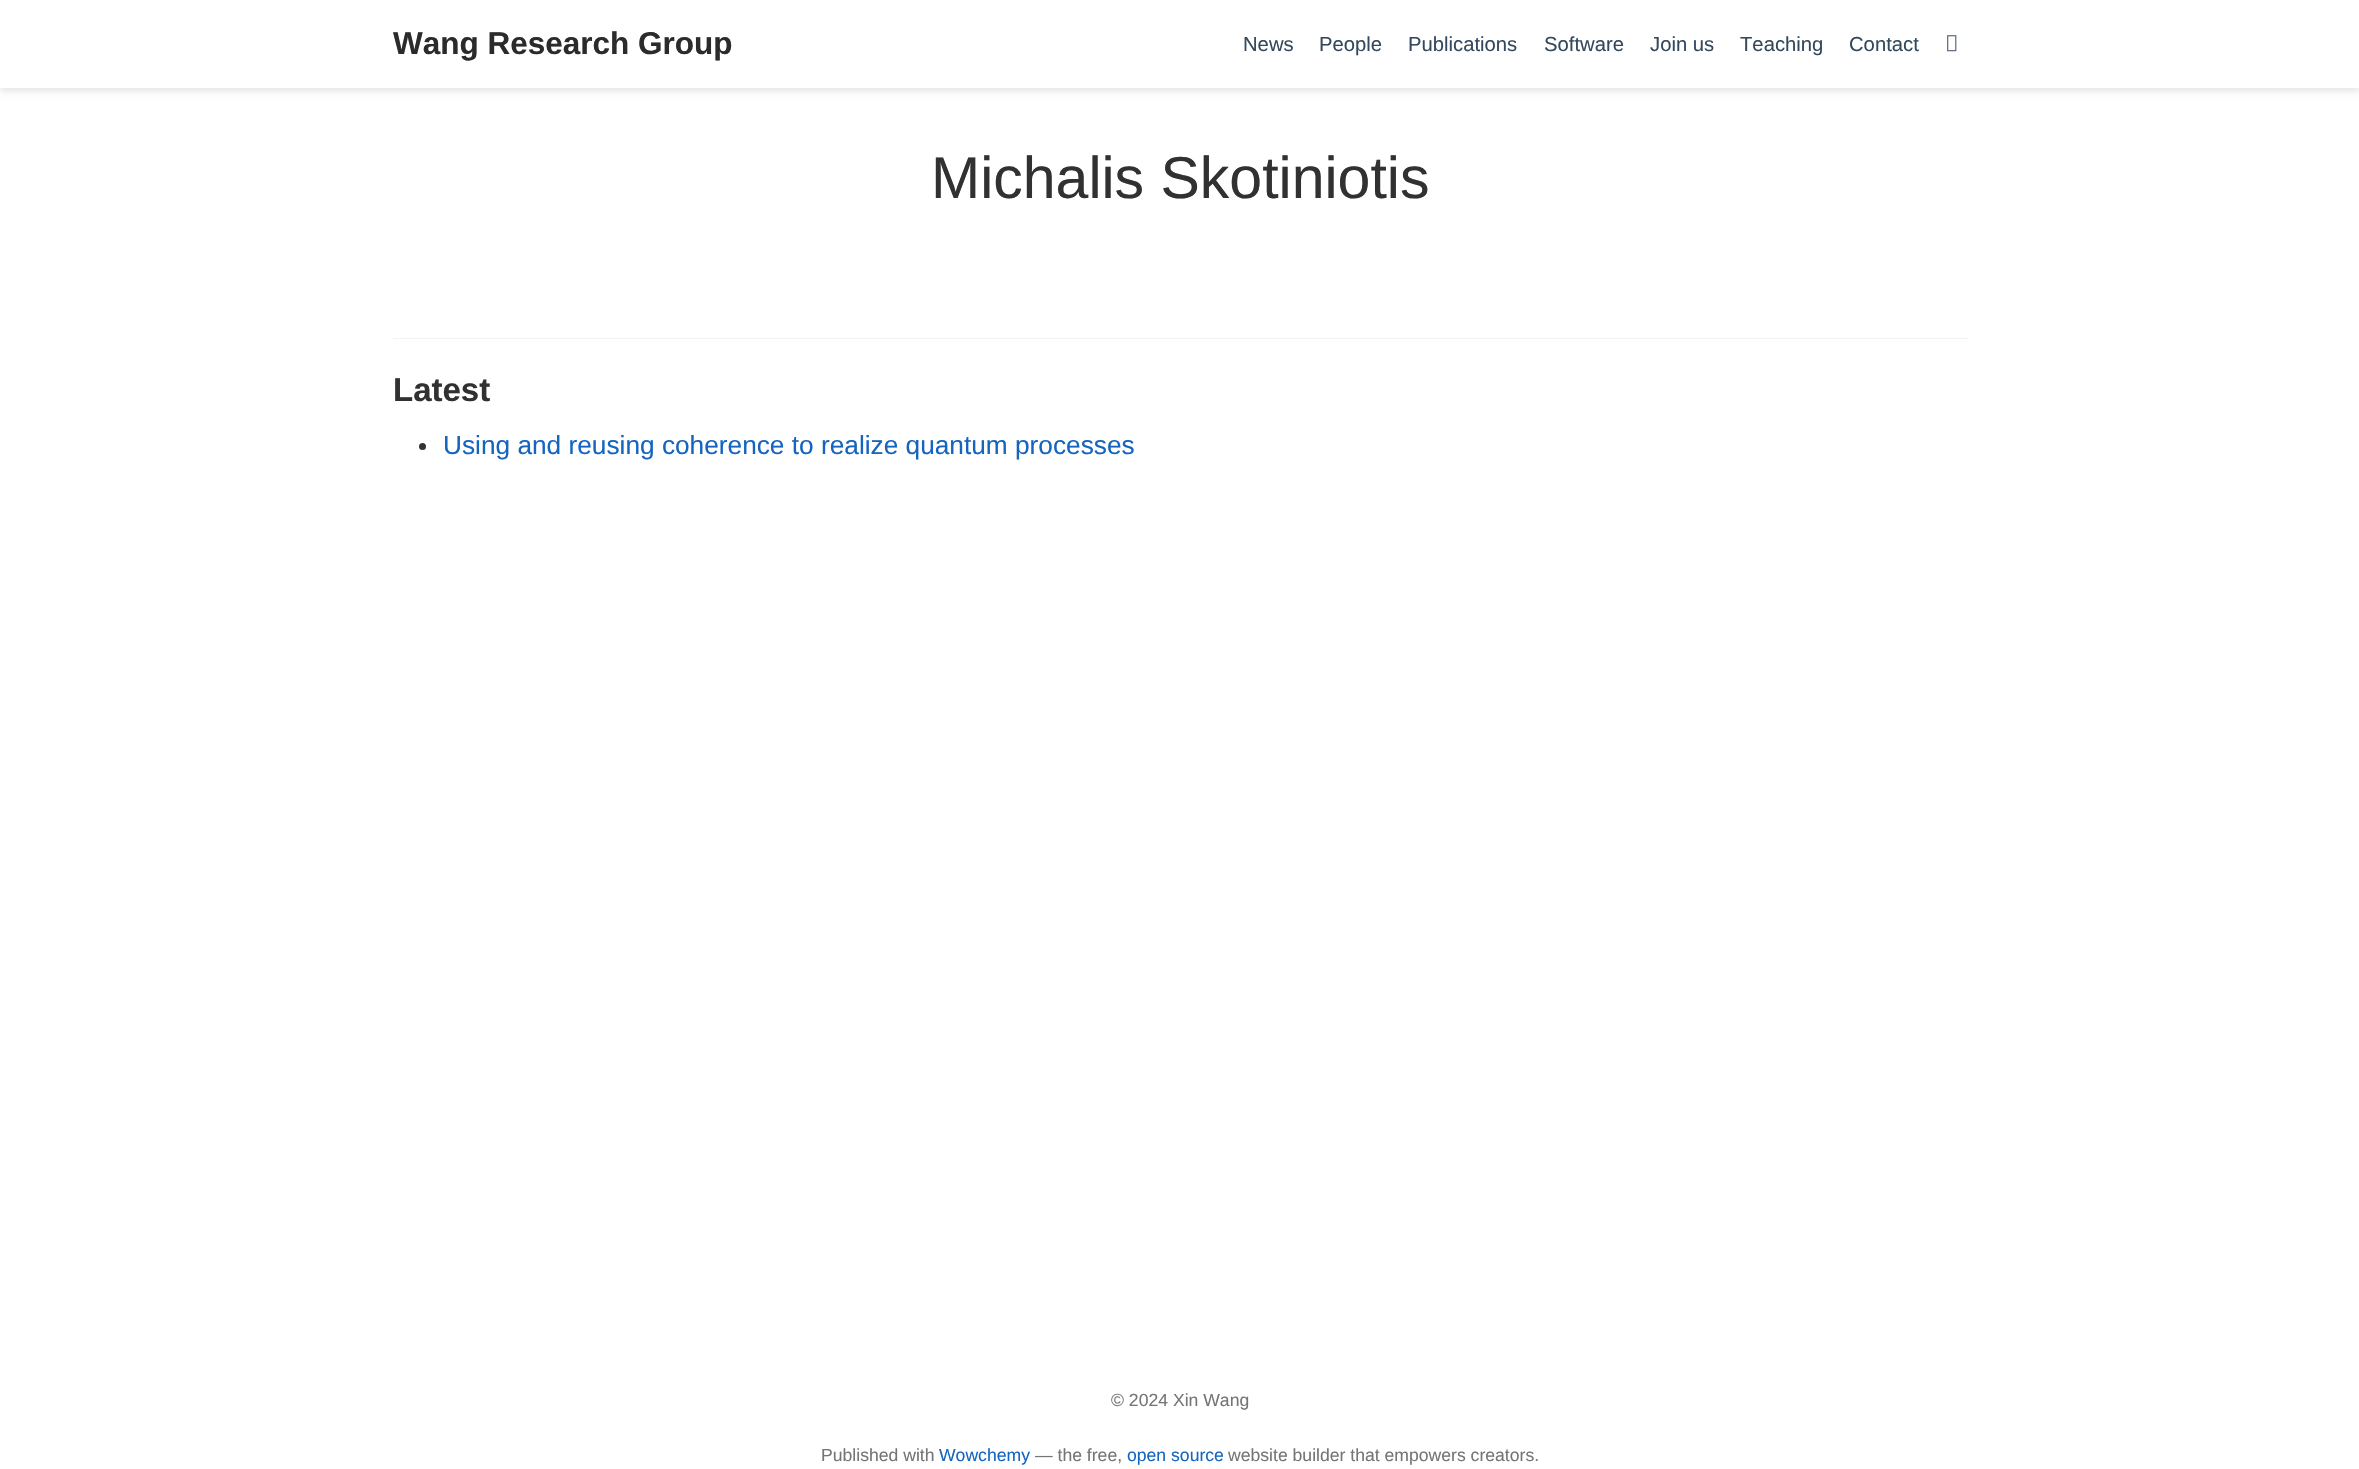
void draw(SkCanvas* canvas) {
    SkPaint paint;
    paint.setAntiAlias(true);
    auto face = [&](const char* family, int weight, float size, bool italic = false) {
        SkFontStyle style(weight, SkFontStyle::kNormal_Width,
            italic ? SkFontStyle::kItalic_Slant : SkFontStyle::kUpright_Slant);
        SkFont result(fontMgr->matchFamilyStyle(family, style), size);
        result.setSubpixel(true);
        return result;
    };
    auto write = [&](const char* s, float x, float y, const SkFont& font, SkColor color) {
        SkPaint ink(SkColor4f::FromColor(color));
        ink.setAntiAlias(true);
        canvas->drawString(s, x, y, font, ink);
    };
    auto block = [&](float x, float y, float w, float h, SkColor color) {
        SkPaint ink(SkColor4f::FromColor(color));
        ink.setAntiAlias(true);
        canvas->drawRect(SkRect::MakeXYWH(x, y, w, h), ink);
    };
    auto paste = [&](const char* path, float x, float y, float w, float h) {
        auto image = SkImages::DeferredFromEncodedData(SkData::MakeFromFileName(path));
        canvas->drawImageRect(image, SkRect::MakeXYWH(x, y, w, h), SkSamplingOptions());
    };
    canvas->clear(SK_ColorWHITE);
    paint.setColor(SkColorSetARGB(28, 0, 0, 0));
    paint.setMaskFilter(SkMaskFilter::MakeBlur(kNormal_SkBlurStyle, 3.5f));
    canvas->drawRect(SkRect::MakeXYWH(0, 4, 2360, 87), paint);
    paint.setMaskFilter(nullptr);
    block(0, 0, 2359, 88, SK_ColorWHITE);
    auto kFont1 = face("Liberation Sans", 700, 31.5f);
    write("Wang Research Group", 393, 54, kFont1, SkColorSetRGB(43, 43, 43));
    auto kFont2 = face("Liberation Sans", 400, 20.25f);
    write("News", 1243, 51, kFont2, SkColorSetRGB(52, 73, 94));
    write("People", 1319, 51, kFont2, SkColorSetRGB(52, 73, 94));
    write("Publications", 1408, 51, kFont2, SkColorSetRGB(52, 73, 94));
    write("Software", 1544, 51, kFont2, SkColorSetRGB(52, 73, 94));
    write("Join us", 1650, 51, kFont2, SkColorSetRGB(52, 73, 94));
    write("Teaching", 1740, 51, kFont2, SkColorSetRGB(52, 73, 94));
    write("Contact", 1849, 51, kFont2, SkColorSetRGB(52, 73, 94));
    paste("pic1.png", 1947, 35, 10, 17);
    auto kFont3 = face("Liberation Sans", 400, 59);
    write("Michalis Skotiniotis", 931, 198, kFont3, SkColorSetRGB(49, 49, 49));
    block(393, 338, 1575, 1, SkColorSetRGB(242, 242, 242));
    auto kFont4 = face("Liberation Sans", 700, 33);
    write("Latest", 393, 401, kFont4, SkColorSetRGB(49, 49, 49));
    paint.setColor(SkColorSetRGB(51, 51, 51));
    canvas->drawCircle(422.5f, 446.5f, 3.5f, paint);
    auto kFont5 = face("Liberation Sans", 400, 26.25f);
    write("Using and reusing coherence to realize quantum processes", 443, 454, kFont5, SkColorSetRGB(21, 101, 192));
    auto kFont6 = face("Liberation Sans", 400, 17.6f);
    write("© 2024 Xin Wang", 1111, 1406, kFont6, SkColorSetRGB(117, 117, 117));
    write("Published with", 821, 1461, kFont6, SkColorSetRGB(117, 117, 117));
    write("Wowchemy", 939, 1461, kFont6, SkColorSetRGB(21, 101, 192));
    write("— the free,", 1035, 1461, kFont6, SkColorSetRGB(117, 117, 117));
    write("open source", 1127, 1461, kFont6, SkColorSetRGB(21, 101, 192));
    write("website builder that empowers creators.", 1228, 1461, kFont6, SkColorSetRGB(117, 117, 117));
}
